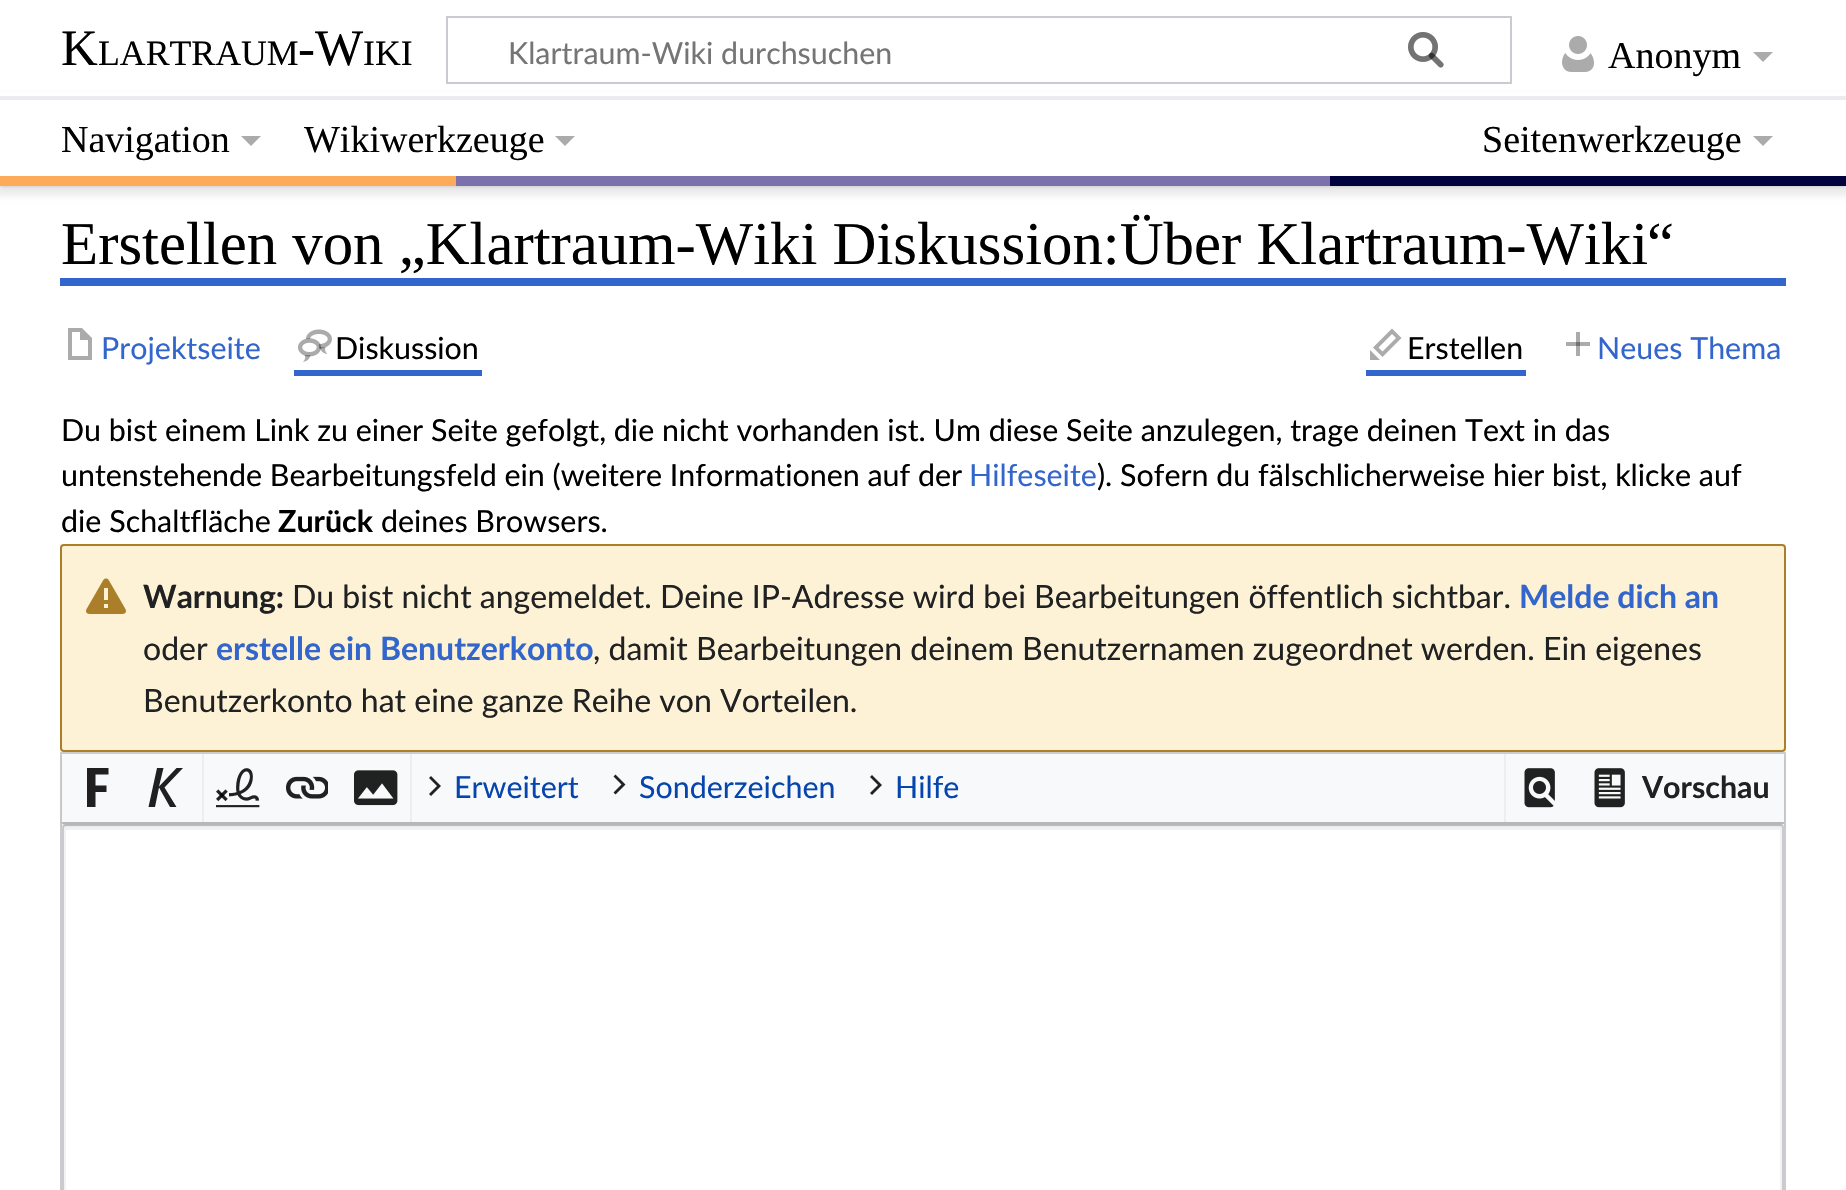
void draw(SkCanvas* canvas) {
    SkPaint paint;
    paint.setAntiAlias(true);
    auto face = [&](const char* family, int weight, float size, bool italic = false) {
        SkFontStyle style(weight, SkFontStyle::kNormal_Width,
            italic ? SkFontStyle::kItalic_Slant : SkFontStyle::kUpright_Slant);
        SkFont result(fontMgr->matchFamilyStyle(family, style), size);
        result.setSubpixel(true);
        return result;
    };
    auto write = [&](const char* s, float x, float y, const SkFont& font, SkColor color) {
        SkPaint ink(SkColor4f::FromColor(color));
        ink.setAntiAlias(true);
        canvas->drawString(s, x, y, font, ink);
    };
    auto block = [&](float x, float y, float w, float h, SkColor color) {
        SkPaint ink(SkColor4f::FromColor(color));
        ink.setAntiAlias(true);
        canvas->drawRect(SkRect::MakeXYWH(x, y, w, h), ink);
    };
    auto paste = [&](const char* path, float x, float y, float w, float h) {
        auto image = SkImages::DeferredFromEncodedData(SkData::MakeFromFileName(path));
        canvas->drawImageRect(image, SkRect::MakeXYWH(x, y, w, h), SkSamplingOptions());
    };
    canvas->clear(SK_ColorWHITE);
    paint.setColor(SkColorSetARGB(51, 0, 0, 0));
    paint.setMaskFilter(SkMaskFilter::MakeBlur(kNormal_SkBlurStyle, 2));
    canvas->drawRect(SkRect::MakeXYWH(0, 96, 1846, 90), paint);
    paint.setMaskFilter(nullptr);
    paint.setColor(SkColorSetARGB(18, 0, 0, 0));
    paint.setMaskFilter(SkMaskFilter::MakeBlur(kNormal_SkBlurStyle, 3));
    canvas->drawRect(SkRect::MakeXYWH(-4, 98, 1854, 98), paint);
    paint.setMaskFilter(nullptr);
    block(0, 92, 1846, 4, SK_ColorWHITE);
    auto kFont1 = face("Liberation Serif", 400, 51);
    write("K", 61, 65, kFont1, SK_ColorBLACK);
    auto kFont2 = face("Liberation Serif", 400, 35.75f);
    write("LARTRAUM", 98, 65, kFont2, SK_ColorBLACK);
    write("-W", 298, 65, kFont1, SK_ColorBLACK);
    write("IKI", 363, 65, kFont2, SK_ColorBLACK);
    paint.setStyle(SkPaint::kStroke_Style);
    paint.setStrokeWidth(2);
    paint.setColor(SkColorSetRGB(200, 204, 209));
    canvas->drawRect(SkRect::MakeXYWH(447, 17, 1064, 66), paint);
    paste("pic1.png", 1408, 32, 36, 36);
    auto kFont3 = face("Lato", 400, 30.4f);
    write("Klartraum-Wiki durchsuchen", 508, 64, kFont3, SkColorSetRGB(117, 117, 117));
    paste("pic2.png", 1408, 32, 36, 36);
    paste("pic3.png", 1562, 36, 32, 36);
    auto kFont4 = face("Liberation Serif", 400, 38);
    write("Anonym", 1608, 68, kFont4, SK_ColorBLACK);
    paint.setStyle(SkPaint::kFill_Style);
    paint.setColor(SkColorSetRGB(171, 171, 171));
    canvas->drawPath(SkPathBuilder().moveTo(1773, 52).lineTo(1763, 62).lineTo(1753, 52).close().detach(), paint);
    block(0, 100, 1846, 76, SK_ColorWHITE);
    block(0, 96, 1846, 4, SkColorSetRGB(234, 236, 240));
    block(0, 176, 456, 10, SkColorSetRGB(254, 170, 91));
    block(456, 176, 874, 10, SkColorSetRGB(123, 114, 172));
    block(1330, 176, 516, 10, SkColorSetRGB(1, 3, 63));
    write("Navigation", 61, 152, kFont4, SK_ColorBLACK);
    canvas->drawPath(SkPathBuilder().moveTo(261, 136).lineTo(251, 146).lineTo(241, 136).close().detach(), paint);
    write("Wikiwerkzeuge", 304, 152, kFont4, SK_ColorBLACK);
    canvas->drawPath(SkPathBuilder().moveTo(575, 136).lineTo(565, 146).lineTo(555, 136).close().detach(), paint);
    write("Seitenwerkzeuge", 1482, 152, kFont4, SK_ColorBLACK);
    canvas->drawPath(SkPathBuilder().moveTo(1773, 136).lineTo(1763, 146).lineTo(1753, 136).close().detach(), paint);
    block(1566, 342, 24, 4, SkColorSetRGB(171, 171, 171));
    block(60, 278, 1726, 8, SkColorSetRGB(51, 102, 204));
    auto kFont5 = face("Liberation Serif", 400, 60.8f);
    write("Erstellen von „Klartraum-Wiki Diskussion:Über Klartraum-Wiki", 61, 264, kFont5, SK_ColorBLACK);
    write("“", 1647, 264, kFont5, SK_ColorBLACK);
    canvas->drawPath(SkPathBuilder().moveTo(68, 328).lineTo(68, 360).lineTo(92, 360).lineTo(92, 338).lineTo(82, 328).close().moveTo(72, 332).lineTo(80, 332).lineTo(80, 340).lineTo(88, 340).lineTo(88, 356).lineTo(72, 356).close().detach(), paint);
    write("Projektseite", 101, 359, kFont3, SkColorSetRGB(51, 102, 204));
    block(294, 370, 188, 6, SkColorSetRGB(51, 102, 204));
    paste("pic4.png", 298, 329, 34, 33);
    write("Diskussion", 335, 359, kFont3, SK_ColorBLACK);
    block(1366, 370, 160, 6, SkColorSetRGB(51, 102, 204));
    canvas->drawPath(SkPathBuilder().moveTo(1392, 328.5f).lineTo(1373, 347.5f).lineTo(1382.5f, 357).lineTo(1401.5f, 338).close().moveTo(1392, 334).lineTo(1396, 338).lineTo(1382.5f, 351.5f).lineTo(1378.5f, 347.5f).close().moveTo(1380, 360).lineTo(1370, 360).lineTo(1370, 350).close().detach(), paint);
    write("Erstellen", 1407, 359, kFont3, SK_ColorBLACK);
    block(1576, 332, 4, 24, SkColorSetRGB(171, 171, 171));
    block(1576, 342, 4, 4, SkColorSetRGB(115, 115, 115));
    write("Neues Thema", 1597, 359, kFont3, SkColorSetRGB(51, 102, 204));
    write("Du bist einem Link zu einer Seite gefolgt, die nicht vorhanden ist. Um diese Seite anzulegen, trage deinen Text in das", 61, 441, kFont3, SK_ColorBLACK);
    write("untenstehende Bearbeitungsfeld ein (weitere Informationen auf der", 61, 486, kFont3, SK_ColorBLACK);
    write("Hilfeseite", 969, 486, kFont3, SkColorSetRGB(51, 102, 204));
    write("). Sofern du fälschlicherweise hier bist, klicke auf", 1097, 486, kFont3, SK_ColorBLACK);
    write("die Schaltfläche", 61, 532, kFont3, SK_ColorBLACK);
    auto kFont6 = face("Lato", 700, 30.4f);
    write("Zurück", 278, 532, kFont6, SK_ColorBLACK);
    write("deines Browsers.", 381, 532, kFont3, SK_ColorBLACK);
    paint.setColor(SkColorSetRGB(253, 242, 213));
    canvas->drawRoundRect(SkRect::MakeXYWH(61, 545, 1724, 206), 3, 3, paint);
    paint.setStyle(SkPaint::kStroke_Style);
    paint.setColor(SkColorSetRGB(171, 127, 42));
    canvas->drawRoundRect(SkRect::MakeXYWH(61, 545, 1724, 206), 3, 3, paint);
    paste("pic5.png", 86, 578, 40, 36);
    auto kFont7 = face("Lato", 700, 32);
    write("Warnung:", 143, 608, kFont7, SkColorSetRGB(32, 33, 34));
    auto kFont8 = face("Lato", 400, 32);
    write("Du bist nicht angemeldet. Deine IP-Adresse wird bei Bearbeitungen öffentlich sichtbar.", 292, 608, kFont8, SkColorSetRGB(32, 33, 34));
    write("Melde dich an", 1519, 608, kFont7, SkColorSetRGB(51, 102, 204));
    write("oder", 143, 660, kFont8, SkColorSetRGB(32, 33, 34));
    write("erstelle ein Benutzerkonto", 216, 660, kFont7, SkColorSetRGB(51, 102, 204));
    write(", damit Bearbeitungen deinem Benutzernamen zugeordnet werden. Ein eigenes", 593, 660, kFont8, SkColorSetRGB(32, 33, 34));
    write("Benutzerkonto hat eine ganze Reihe von Vorteilen.", 143, 712, kFont8, SkColorSetRGB(32, 33, 34));
    block(60, 752, 1726, 2, SkColorSetRGB(204, 204, 204));
    block(1784, 752, 2, 438, SkColorSetRGB(204, 204, 204));
    block(60, 752, 2, 438, SkColorSetRGB(204, 204, 204));
    block(62, 822, 1722, 2, SkColorSetRGB(204, 204, 204));
    paint.setStyle(SkPaint::kFill_Style);
    paint.setColor(SkColorSetRGB(242, 242, 242));
    canvas->drawPath(SkPathBuilder().moveTo(66, 830).lineTo(1780, 830).lineTo(1780, 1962).cubicTo(1781, 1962, 1782, 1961, 1782, 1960).lineTo(1782, 828).cubicTo(1782, 827, 1781, 826, 1780, 826).lineTo(66, 826).cubicTo(65, 826, 64, 827, 64, 828).lineTo(64, 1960).cubicTo(64, 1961, 65, 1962, 66, 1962).close().detach(), paint);
    paint.setStyle(SkPaint::kStroke_Style);
    paint.setColor(SkColorSetRGB(200, 204, 209));
    canvas->drawRoundRect(SkRect::MakeXYWH(63, 825, 1720, 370), 3, 3, paint);
    paint.setStyle(SkPaint::kFill_Style);
    paint.setColor(SkColorSetARGB(26, 0, 0, 0));
    paint.setMaskFilter(SkMaskFilter::MakeBlur(kNormal_SkBlurStyle, 1));
    canvas->drawRect(SkRect::MakeXYWH(62, 758, 1722, 68), paint);
    paint.setMaskFilter(nullptr);
    block(62, 754, 1722, 68, SkColorSetRGB(248, 249, 250));
    block(202, 754, 2, 68, SkColorSetRGB(238, 238, 238));
    paint.setColor(SkColorSetRGB(32, 32, 33));
    canvas->drawPath(SkPathBuilder().moveTo(95.5f, 807).lineTo(87, 807).lineTo(87, 768).lineTo(108.5f, 768).lineTo(108.5f, 774.5f).lineTo(95.5f, 774.5f).lineTo(95.5f, 785.5f).lineTo(106.5f, 785.5f).lineTo(106.5f, 792).lineTo(95.5f, 792).close().detach(), paint);
    canvas->drawPath(SkPathBuilder().moveTo(148.5f, 807).lineTo(157, 768).lineTo(163.5f, 768).lineTo(159, 786.5f).lineTo(176.5f, 768).lineTo(183, 768).lineTo(164.5f, 787.5f).lineTo(176.5f, 807).lineTo(170, 807).lineTo(159, 787.5f).lineTo(155, 807).close().detach(), paint);
    block(410, 754, 2, 68, SkColorSetRGB(238, 238, 238));
    paste("pic6.png", 216, 768, 44, 40);
    paste("pic7.png", 286, 776, 42, 23);
    paste("pic8.png", 354, 770, 44, 36);
    paint.setColor(SkColorSetRGB(34, 34, 34));
    canvas->drawPath(SkPathBuilder().moveTo(431, 796).lineTo(429, 794).lineTo(437, 786).lineTo(429, 778).lineTo(431, 776).lineTo(441, 786).detach(), paint);
    write("Erweitert", 454, 798, kFont3, SkColorSetRGB(6, 69, 173));
    canvas->drawPath(SkPathBuilder().moveTo(615.5f, 794.5f).lineTo(613.5f, 792.5f).lineTo(621.5f, 784.5f).lineTo(613.5f, 776.5f).lineTo(615.5f, 774.5f).lineTo(625.5f, 784.5f).detach(), paint);
    write("Sonderzeichen", 639, 798, kFont3, SkColorSetRGB(6, 69, 173));
    canvas->drawPath(SkPathBuilder().moveTo(872, 795).lineTo(870, 793).lineTo(878, 785).lineTo(870, 777).lineTo(872, 775).lineTo(882, 785).detach(), paint);
    write("Hilfe", 895, 798, kFont3, SkColorSetRGB(6, 69, 173));
    block(1504, 754, 2, 68, SkColorSetRGB(238, 238, 238));
    paste("pic9.png", 1524, 768, 31, 40);
    paste("pic10.png", 1594, 768, 31, 40);
    write("Vorschau", 1642, 798, kFont6, SkColorSetRGB(32, 33, 34));
}
